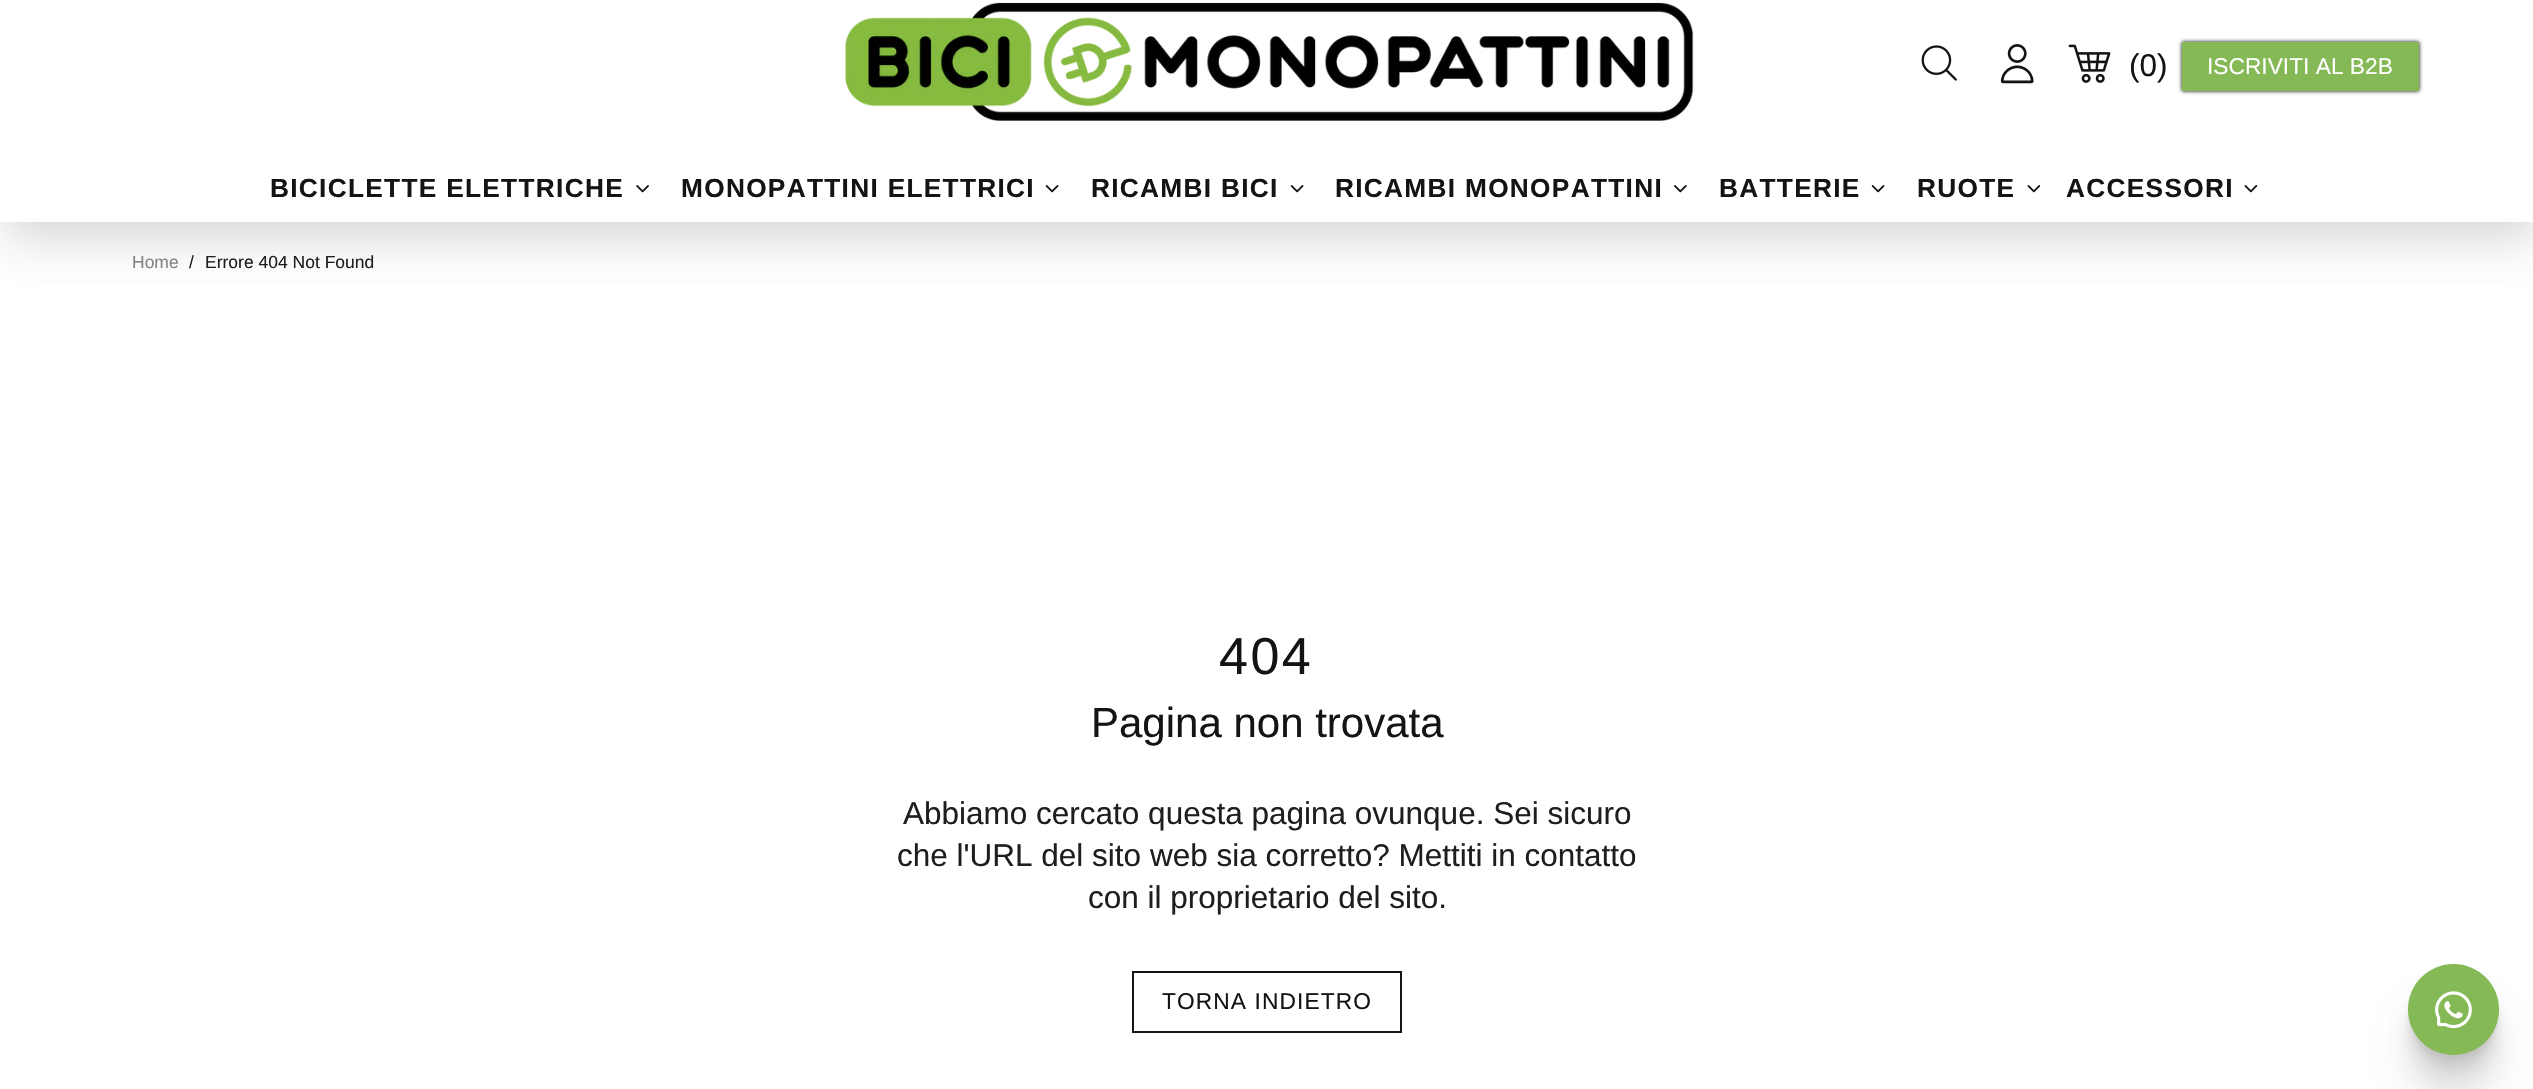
void draw(SkCanvas* canvas) {
    SkPaint paint;
    paint.setAntiAlias(true);
    auto face = [&](const char* family, int weight, float size, bool italic = false) {
        SkFontStyle style(weight, SkFontStyle::kNormal_Width,
            italic ? SkFontStyle::kItalic_Slant : SkFontStyle::kUpright_Slant);
        SkFont result(fontMgr->matchFamilyStyle(family, style), size);
        result.setSubpixel(true);
        return result;
    };
    auto write = [&](const char* s, float x, float y, const SkFont& font, SkColor color) {
        SkPaint ink(SkColor4f::FromColor(color));
        ink.setAntiAlias(true);
        canvas->drawString(s, x, y, font, ink);
    };
    auto writeSpaced = [&](const char* s, float x, float y, const SkFont& font, const SkPaint& ink, float letter, float word) {
        std::vector<SkGlyphID> glyphs(font.countText(s, strlen(s), SkTextEncoding::kUTF8));
        std::vector<float> xs(glyphs.size());
        font.textToGlyphs(s, strlen(s), SkTextEncoding::kUTF8, glyphs);
        font.getXPos(glyphs, xs, x);
        float extra = 0;
        for (size_t i = 0; i < glyphs.size(); i++) {
            xs[i] += extra;
            extra += letter + word * (glyphs[i] == font.unicharToGlyph(' '));
        }
        canvas->drawTextBlob(SkTextBlob::MakeFromPosHGlyphs(glyphs, xs, y, font), 0, 0, ink);
    };
    auto block = [&](float x, float y, float w, float h, SkColor color) {
        SkPaint ink(SkColor4f::FromColor(color));
        ink.setAntiAlias(true);
        canvas->drawRect(SkRect::MakeXYWH(x, y, w, h), ink);
    };
    auto paste = [&](const char* path, float x, float y, float w, float h) {
        auto image = SkImages::DeferredFromEncodedData(SkData::MakeFromFileName(path));
        canvas->drawImageRect(image, SkRect::MakeXYWH(x, y, w, h), SkSamplingOptions());
    };
    canvas->clear(SK_ColorWHITE);
    canvas->save();
    canvas->clipRect(SkRect::MakeXYWH(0, 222, 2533, 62));
    paint.setColor(SkColorSetRGB(211, 211, 211));
    paint.setMaskFilter(SkMaskFilter::MakeBlur(kNormal_SkBlurStyle, 23.5f));
    canvas->drawRect(SkRect::MakeXYWH(5, -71, 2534, 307), paint);
    paint.setMaskFilter(nullptr);
    canvas->restore();
    paste("pic1.png", 845, 2, 849, 119);
    paste("pic2.png", 1921, 45, 36, 36);
    paste("pic3.png", 2000, 44, 34, 40);
    paste("pic4.png", 2068, 44, 43, 39);
    auto kFont1 = face("Liberation Sans", 400, 31.5f);
    write("(0)", 2129, 76, kFont1, SkColorSetRGB(20, 20, 20));
    paint.setColor(SK_ColorBLACK);
    paint.setMaskFilter(SkMaskFilter::MakeBlur(kNormal_SkBlurStyle, 2));
    canvas->drawRect(SkRect::MakeXYWH(2182, 42, 237, 49), paint);
    paint.setMaskFilter(nullptr);
    block(2182, 42, 237, 49, SkColorSetRGB(132, 185, 85));
    auto kFont2 = face("Liberation Sans", 400, 22.75f);
    write("ISCRIVITI AL B2B", 2207, 74, kFont2, SK_ColorWHITE);
    auto kFont3 = face("Liberation Sans", 700, 26.25f);
    paint.setColor(SkColorSetRGB(20, 20, 20));
    writeSpaced("BICICLETTE ELETTRICHE", 270, 197, kFont3, paint, 1.3f, 0);
    paste("pic5.png", 636, 185, 13, 8);
    writeSpaced("MONOPATTINI ELETTRICI", 681, 197, kFont3, paint, 1.3f, 0);
    paste("pic6.png", 1045, 185, 14, 8);
    writeSpaced("RICAMBI BICI", 1091, 197, kFont3, paint, 1.3f, 0);
    paste("pic6.png", 1290, 185, 14, 8);
    writeSpaced("RICAMBI MONOPATTINI", 1335, 197, kFont3, paint, 1.3f, 0);
    paste("pic7.png", 1674, 185, 13, 8);
    writeSpaced("BATTERIE", 1719, 197, kFont3, paint, 1.3f, 0);
    paste("pic6.png", 1871, 185, 14, 8);
    writeSpaced("RUOTE", 1917, 197, kFont3, paint, 1.3f, 0);
    paste("pic8.png", 2027, 185, 14, 8);
    writeSpaced("ACCESSORI", 2066, 197, kFont3, paint, 1.3f, 0);
    paste("pic8.png", 2244, 185, 14, 8);
    auto kFont4 = face("Liberation Sans", 400, 17.5f);
    write("Home", 132, 268, kFont4, SkColorSetRGB(133, 133, 133));
    write("/", 189, 268, kFont4, SkColorSetRGB(30, 30, 30));
    write("Errore 404 Not Found", 205, 268, kFont4, SkColorSetRGB(30, 30, 30));
    auto kFont5 = face("Liberation Sans", 400, 52);
    writeSpaced("404", 1219, 674, kFont5, paint, 2.5f, 0);
    auto kFont6 = face("Liberation Sans", 400, 42);
    write("Pagina non trovata", 1091, 737, kFont6, SkColorSetRGB(20, 20, 20));
    write("Abbiamo cercato questa pagina ovunque. Sei sicuro", 903, 824, kFont1, SkColorSetRGB(30, 30, 30));
    write("che l'URL del sito web sia corretto? Mettiti in contatto", 897, 866, kFont1, SkColorSetRGB(30, 30, 30));
    write("con il proprietario del sito.", 1088, 908, kFont1, SkColorSetRGB(30, 30, 30));
    paint.setStyle(SkPaint::kStroke_Style);
    paint.setStrokeWidth(2);
    canvas->drawRect(SkRect::MakeXYWH(1133, 972, 268, 60), paint);
    paint.setStyle(SkPaint::kFill_Style);
    writeSpaced("TORNA INDIETRO", 1162, 1009, kFont2, paint, 1.1f, 0);
    paint.setColor(SkColorSetARGB(26, 0, 0, 0));
    paint.setMaskFilter(SkMaskFilter::MakeBlur(kNormal_SkBlurStyle, 17.5f));
    canvas->drawRoundRect(SkRect::MakeXYWH(2408, 1008, 91, 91), 45.5f, 45.5f, paint);
    paint.setMaskFilter(nullptr);
    paint.setColor(SkColorSetARGB(15, 0, 0, 0));
    paint.setMaskFilter(SkMaskFilter::MakeBlur(kNormal_SkBlurStyle, 8.5f));
    canvas->drawRoundRect(SkRect::MakeXYWH(2408, 987, 91, 91), 45.5f, 45.5f, paint);
    paint.setMaskFilter(nullptr);
    paint.setMaskFilter(SkMaskFilter::MakeBlur(kNormal_SkBlurStyle, 3.5f));
    canvas->drawRoundRect(SkRect::MakeXYWH(2408, 975, 91, 91), 45.5f, 45.5f, paint);
    paint.setMaskFilter(nullptr);
    paint.setColor(SkColorSetARGB(10, 0, 0, 0));
    paint.setMaskFilter(SkMaskFilter::MakeBlur(kNormal_SkBlurStyle, 1));
    canvas->drawRoundRect(SkRect::MakeXYWH(2408, 968, 91, 91), 45.5f, 45.5f, paint);
    paint.setMaskFilter(nullptr);
    paint.setColor(SkColorSetRGB(133, 185, 85));
    canvas->drawCircle(2453.5f, 1009.5f, 45.5f, paint);
    paste("pic9.png", 2435, 991, 37, 38);
}
